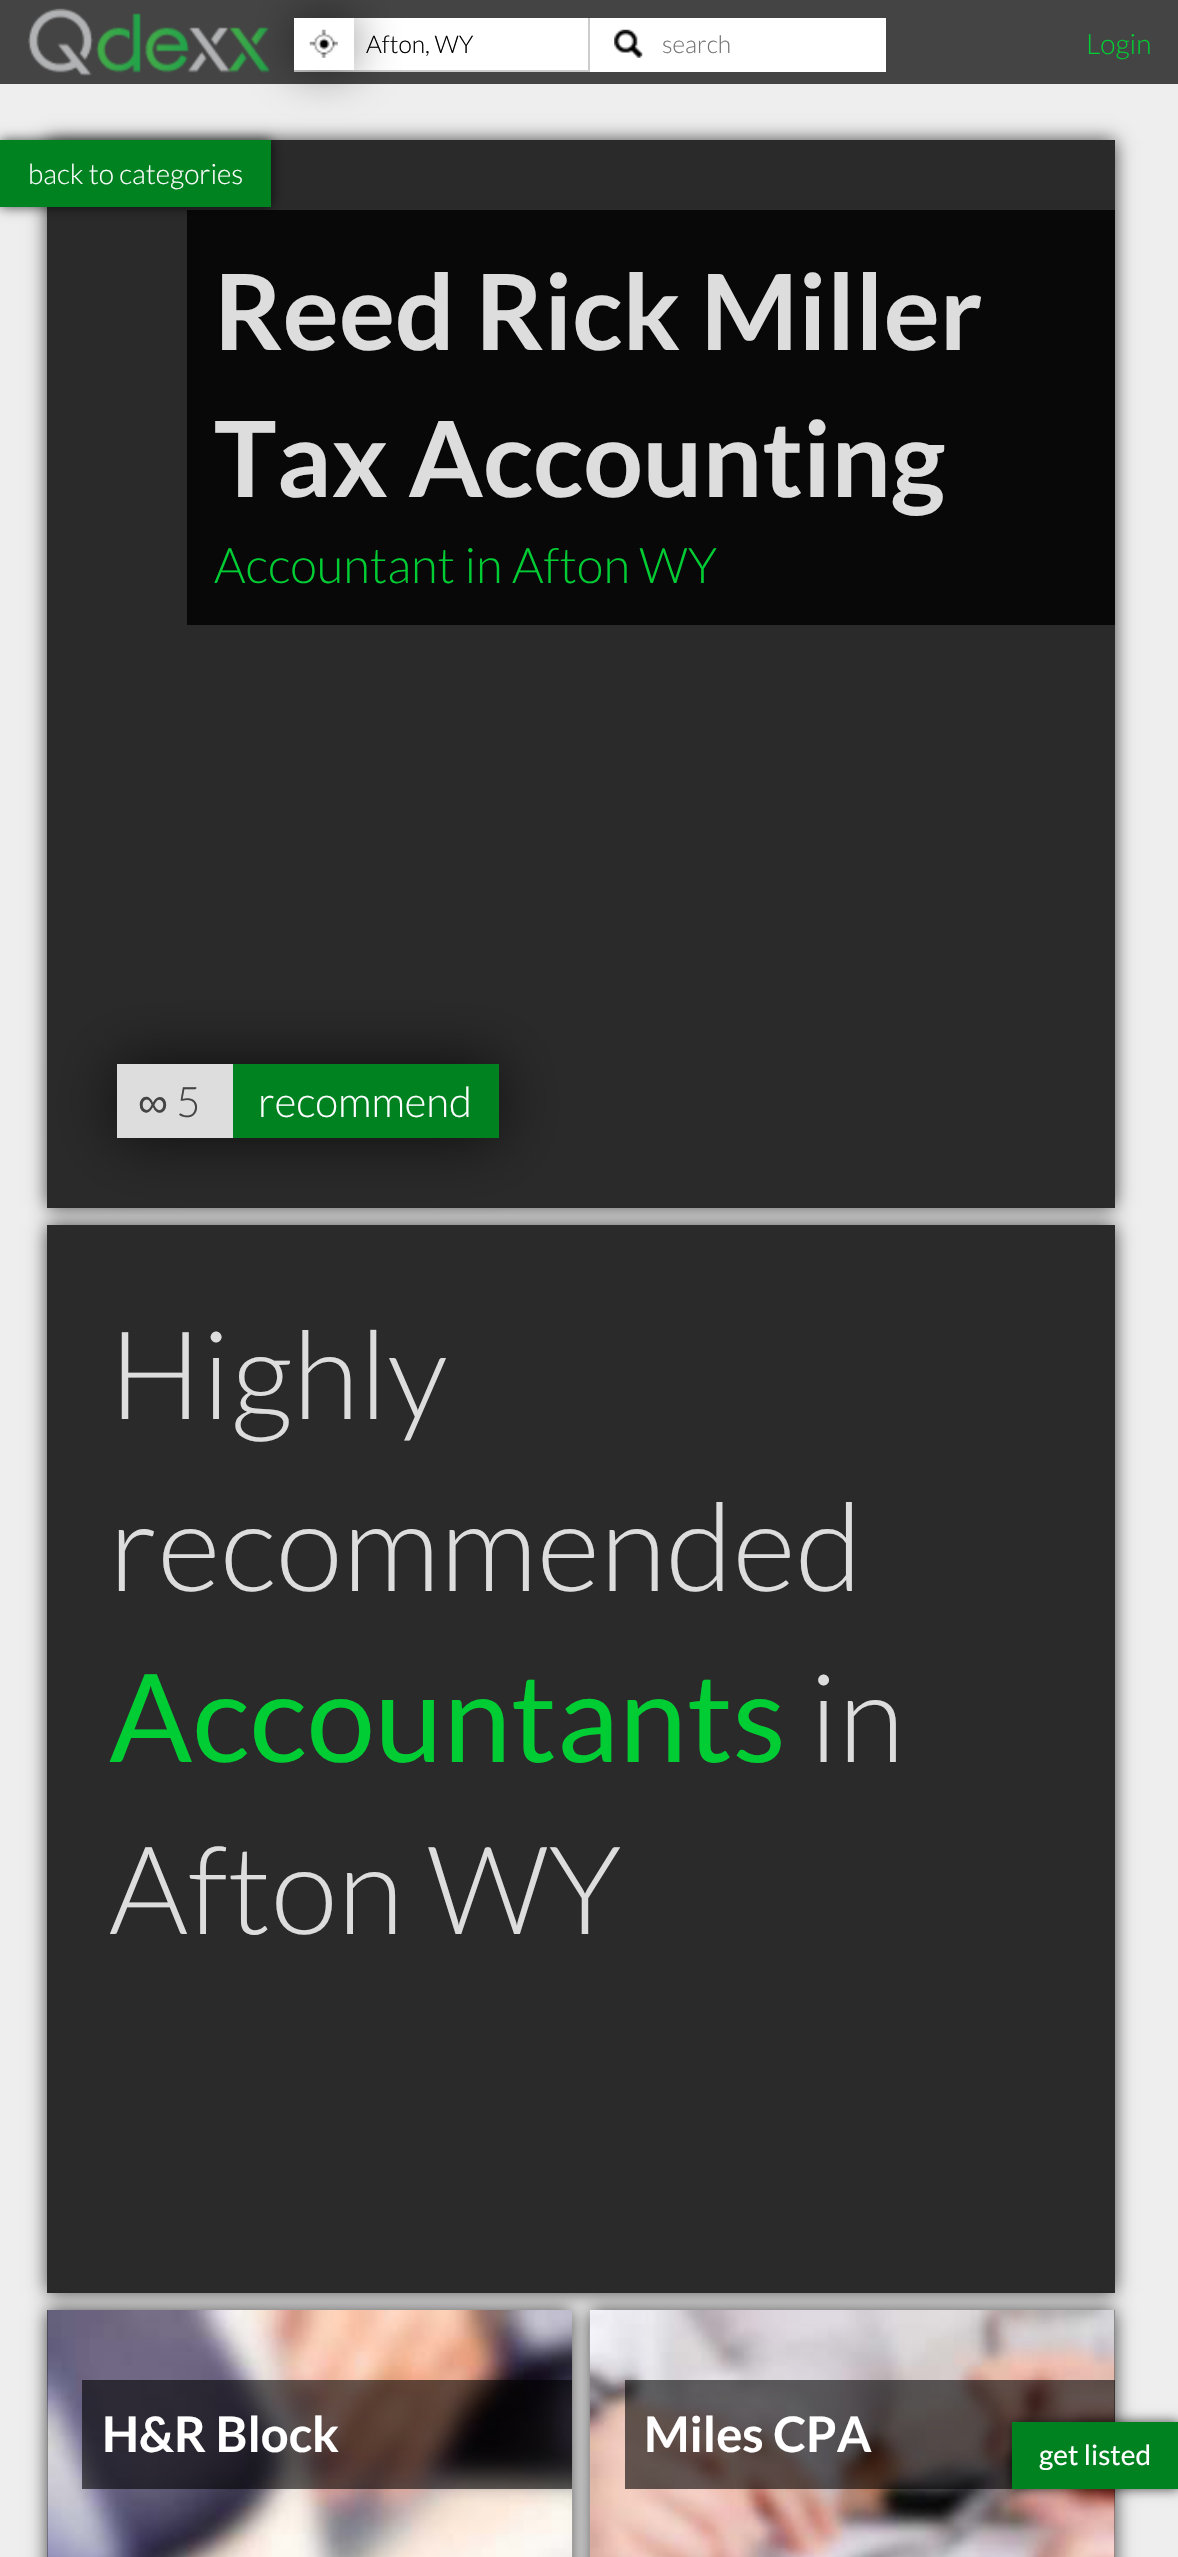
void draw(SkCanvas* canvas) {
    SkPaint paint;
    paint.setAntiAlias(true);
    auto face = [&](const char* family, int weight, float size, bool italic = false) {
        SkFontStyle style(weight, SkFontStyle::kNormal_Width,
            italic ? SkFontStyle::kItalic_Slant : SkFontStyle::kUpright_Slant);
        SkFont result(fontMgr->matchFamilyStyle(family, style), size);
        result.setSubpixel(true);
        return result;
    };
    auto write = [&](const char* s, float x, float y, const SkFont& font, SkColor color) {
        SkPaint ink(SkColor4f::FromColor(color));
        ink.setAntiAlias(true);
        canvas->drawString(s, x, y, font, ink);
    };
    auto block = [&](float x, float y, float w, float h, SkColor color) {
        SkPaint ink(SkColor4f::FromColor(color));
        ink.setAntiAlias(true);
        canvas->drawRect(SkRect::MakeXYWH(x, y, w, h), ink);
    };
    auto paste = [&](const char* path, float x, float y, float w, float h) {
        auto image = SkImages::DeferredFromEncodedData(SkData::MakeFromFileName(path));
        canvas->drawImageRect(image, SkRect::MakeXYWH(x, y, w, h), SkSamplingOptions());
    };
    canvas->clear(SkColorSetRGB(238, 238, 238));
    block(0, 0, 1178, 84, SkColorSetRGB(68, 68, 68));
    paste("pic1.png", 28, 8, 242, 68);
    block(590, 18, 296, 54, SK_ColorWHITE);
    block(588, 18, 2, 54, SkColorSetRGB(204, 204, 204));
    block(294, 70, 296, 2, SkColorSetRGB(204, 204, 204));
    block(294, 18, 294, 52, SK_ColorWHITE);
    canvas->save();
    canvas->clipPath(SkPathBuilder(SkPathFillType::kEvenOdd).moveTo(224, 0).lineTo(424, 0).lineTo(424, 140).lineTo(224, 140).close().moveTo(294, 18).lineTo(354, 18).lineTo(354, 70).lineTo(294, 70).close().detach(), true);
    paint.setColor(SK_ColorBLACK);
    paint.setMaskFilter(SkMaskFilter::MakeBlur(kNormal_SkBlurStyle, 26));
    canvas->drawRect(SkRect::MakeXYWH(303, 26, 42, 35), paint);
    paint.setMaskFilter(nullptr);
    canvas->restore();
    paste("pic2.png", 309, 29, 29, 29);
    auto kFont1 = face("Lato", 300, 24.5f);
    write("Afton, WY", 366, 53, kFont1, SK_ColorBLACK);
    paste("pic3.png", 614, 29, 29, 29);
    write("search", 662, 53, kFont1, SkColorSetRGB(117, 117, 117));
    auto kFont2 = face("Lato", 300, 28);
    write("Login", 1086, 54, kFont2, SkColorSetRGB(0, 204, 51));
    paint.setColor(SkColorSetARGB(179, 0, 0, 0));
    paint.setMaskFilter(SkMaskFilter::MakeBlur(kNormal_SkBlurStyle, 9));
    canvas->drawRect(SkRect::MakeXYWH(47, 140, 1068, 1068), paint);
    paint.setMaskFilter(nullptr);
    block(47, 140, 1068, 1068, SkColorSetRGB(42, 42, 42));
    block(187, 210, 928, 415, SkColorSetRGB(8, 8, 8));
    paint.setMaskFilter(SkMaskFilter::MakeBlur(kNormal_SkBlurStyle, 6));
    canvas->drawRect(SkRect::MakeXYWH(0, 140, 271, 67), paint);
    paint.setMaskFilter(nullptr);
    block(0, 140, 271, 67, SkColorSetRGB(0, 130, 33));
    write("back to categories", 28, 184, kFont2, SK_ColorWHITE);
    auto kFont3 = face("Lato", 700, 105);
    write("Reed Rick Miller", 214, 350, kFont3, SkColorSetRGB(221, 221, 221));
    write("Tax Accounting", 214, 497, kFont3, SkColorSetRGB(221, 221, 221));
    auto kFont4 = face("Lato", 300, 49);
    write("Accountant in Afton WY", 214, 583, kFont4, SkColorSetRGB(0, 204, 51));
    paint.setMaskFilter(SkMaskFilter::MakeBlur(kNormal_SkBlurStyle, 9));
    canvas->drawRect(SkRect::MakeXYWH(47, 1225, 1068, 1068), paint);
    paint.setMaskFilter(nullptr);
    block(47, 1225, 1068, 1068, SkColorSetRGB(42, 42, 42));
    paint.setMaskFilter(SkMaskFilter::MakeBlur(kNormal_SkBlurStyle, 32.5f));
    canvas->drawRect(SkRect::MakeXYWH(117, 1064, 382, 74), paint);
    paint.setMaskFilter(nullptr);
    block(117, 1064, 116, 74, SkColorSetRGB(221, 221, 221));
    auto kFont5 = face("Liberation Sans", 400, 42);
    write("∞", 138, 1117, kFont5, SkColorSetRGB(68, 68, 68));
    auto kFont6 = face("Lato", 300, 42);
    write("5", 176, 1117, kFont6, SkColorSetRGB(68, 68, 68));
    block(233, 1064, 266, 74, SkColorSetRGB(0, 130, 33));
    write("recommend", 258, 1117, kFont6, SK_ColorWHITE);
    auto kFont7 = face("Lato", 300, 122.5f);
    write("Highly", 109, 1419, kFont7, SkColorSetRGB(221, 221, 221));
    write("recommended", 109, 1591, kFont7, SkColorSetRGB(221, 221, 221));
    auto kFont8 = face("Lato", 400, 122.5f);
    write("Accountants", 109, 1762, kFont8, SkColorSetRGB(0, 204, 51));
    write("in", 809, 1762, kFont7, SkColorSetRGB(221, 221, 221));
    write("Afton WY", 109, 1934, kFont7, SkColorSetRGB(221, 221, 221));
    paint.setMaskFilter(SkMaskFilter::MakeBlur(kNormal_SkBlurStyle, 9));
    canvas->drawRect(SkRect::MakeXYWH(47, 2310, 525, 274), paint);
    paint.setMaskFilter(nullptr);
    block(47, 2310, 1, 247, SkColorSetRGB(42, 42, 42));
    paste("pic4.png", 47, 2310, 526, 247);
    block(82, 2380, 490, 109, SkColorSetARGB(153, 0, 0, 0));
    auto kFont9 = face("Lato", 700, 49);
    write("H&R Block", 102, 2452, kFont9, SK_ColorWHITE);
    paint.setMaskFilter(SkMaskFilter::MakeBlur(kNormal_SkBlurStyle, 9));
    canvas->drawRect(SkRect::MakeXYWH(590, 2310, 525, 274), paint);
    paint.setMaskFilter(nullptr);
    block(1114, 2310, 1, 247, SkColorSetRGB(42, 42, 42));
    paste("pic5.png", 589, 2310, 526, 247);
    block(625, 2380, 490, 109, SkColorSetARGB(153, 0, 0, 0));
    write("Miles CPA", 644, 2452, kFont9, SK_ColorWHITE);
    paint.setMaskFilter(SkMaskFilter::MakeBlur(kNormal_SkBlurStyle, 6));
    canvas->drawRect(SkRect::MakeXYWH(1012, 2422, 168, 67), paint);
    paint.setMaskFilter(nullptr);
    block(1012, 2422, 166, 67, SkColorSetRGB(0, 130, 33));
    auto kFont10 = face("Lato", 400, 28);
    write("get listed", 1039, 2465, kFont10, SK_ColorWHITE);
}
